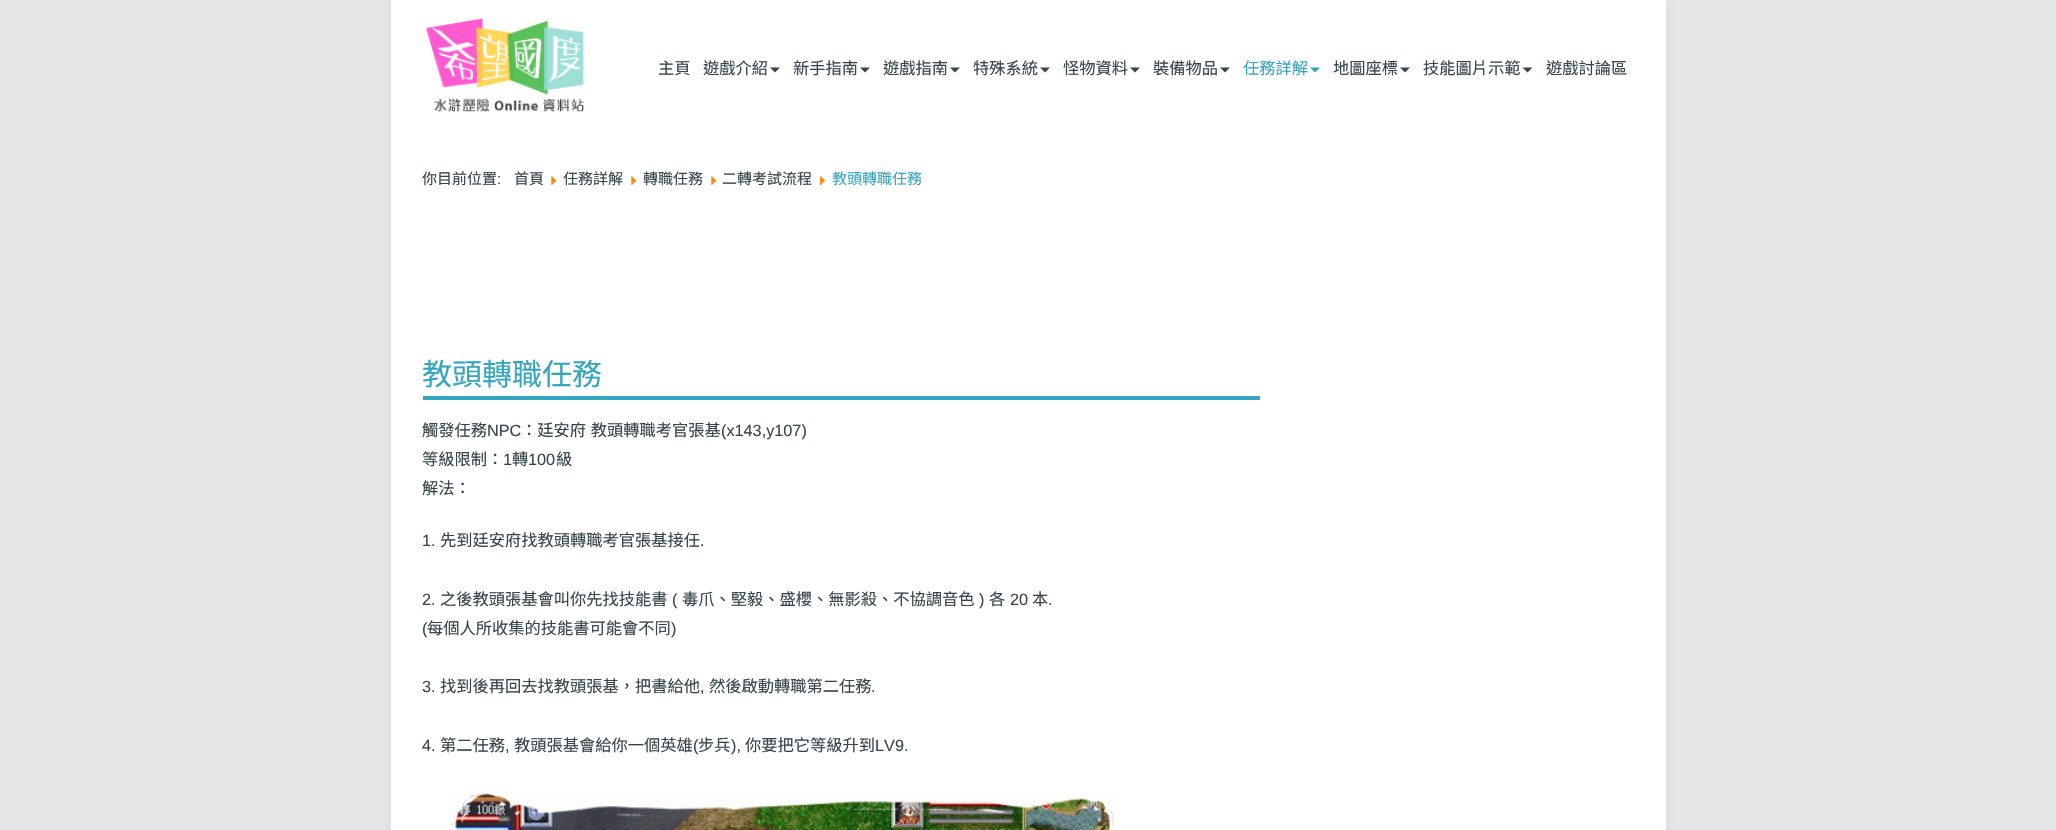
void draw(SkCanvas* canvas) {
    SkPaint paint;
    paint.setAntiAlias(true);
    auto face = [&](const char* family, int weight, float size, bool italic = false) {
        SkFontStyle style(weight, SkFontStyle::kNormal_Width,
            italic ? SkFontStyle::kItalic_Slant : SkFontStyle::kUpright_Slant);
        SkFont result(fontMgr->matchFamilyStyle(family, style), size);
        result.setSubpixel(true);
        return result;
    };
    auto write = [&](const char* s, float x, float y, const SkFont& font, SkColor color) {
        SkPaint ink(SkColor4f::FromColor(color));
        ink.setAntiAlias(true);
        canvas->drawString(s, x, y, font, ink);
    };
    auto writeSpaced = [&](const char* s, float x, float y, const SkFont& font, const SkPaint& ink, float letter, float word) {
        std::vector<SkGlyphID> glyphs(font.countText(s, strlen(s), SkTextEncoding::kUTF8));
        std::vector<float> xs(glyphs.size());
        font.textToGlyphs(s, strlen(s), SkTextEncoding::kUTF8, glyphs);
        font.getXPos(glyphs, xs, x);
        float extra = 0;
        for (size_t i = 0; i < glyphs.size(); i++) {
            xs[i] += extra;
            extra += letter + word * (glyphs[i] == font.unicharToGlyph(' '));
        }
        canvas->drawTextBlob(SkTextBlob::MakeFromPosHGlyphs(glyphs, xs, y, font), 0, 0, ink);
    };
    auto block = [&](float x, float y, float w, float h, SkColor color) {
        SkPaint ink(SkColor4f::FromColor(color));
        ink.setAntiAlias(true);
        canvas->drawRect(SkRect::MakeXYWH(x, y, w, h), ink);
    };
    auto paste = [&](const char* path, float x, float y, float w, float h) {
        auto image = SkImages::DeferredFromEncodedData(SkData::MakeFromFileName(path));
        canvas->drawImageRect(image, SkRect::MakeXYWH(x, y, w, h), SkSamplingOptions());
    };
    canvas->clear(SkColorSetRGB(230, 231, 233));
    paint.setColor(SkColorSetARGB(18, 0, 0, 0));
    paint.setMaskFilter(SkMaskFilter::MakeBlur(kNormal_SkBlurStyle, 5));
    canvas->drawRect(SkRect::MakeXYWH(391, 0, 1275, 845), paint);
    paint.setMaskFilter(nullptr);
    block(391, 0, 1275, 830, SK_ColorWHITE);
    paste("pic1.png", 425, 18, 160, 94);
    auto kFont1 = face("Noto Sans CJK TC", 400, 16.25f);
    write("主頁", 658, 74, kFont1, SkColorSetRGB(53, 69, 75));
    write("遊戲介紹", 703, 74, kFont1, SkColorSetRGB(53, 69, 75));
    paint.setColor(SkColorSetRGB(53, 69, 75));
    canvas->drawPath(SkPathBuilder().moveTo(770, 67.5f).lineTo(780, 67.5f).lineTo(775, 72.5f).close().detach(), paint);
    write("新手指南", 793, 74, kFont1, SkColorSetRGB(53, 69, 75));
    canvas->drawPath(SkPathBuilder().moveTo(860, 67.5f).lineTo(870, 67.5f).lineTo(865, 72.5f).close().detach(), paint);
    write("遊戲指南", 883, 74, kFont1, SkColorSetRGB(53, 69, 75));
    canvas->drawPath(SkPathBuilder().moveTo(950, 67.5f).lineTo(960, 67.5f).lineTo(955, 72.5f).close().detach(), paint);
    write("特殊系統", 973, 74, kFont1, SkColorSetRGB(53, 69, 75));
    canvas->drawPath(SkPathBuilder().moveTo(1040, 67.5f).lineTo(1050, 67.5f).lineTo(1045, 72.5f).close().detach(), paint);
    write("怪物資料", 1063, 74, kFont1, SkColorSetRGB(53, 69, 75));
    canvas->drawPath(SkPathBuilder().moveTo(1130, 67.5f).lineTo(1140, 67.5f).lineTo(1135, 72.5f).close().detach(), paint);
    write("裝備物品", 1153, 74, kFont1, SkColorSetRGB(53, 69, 75));
    canvas->drawPath(SkPathBuilder().moveTo(1220, 67.5f).lineTo(1230, 67.5f).lineTo(1225, 72.5f).close().detach(), paint);
    write("任務詳解", 1243, 74, kFont1, SkColorSetRGB(53, 166, 190));
    paint.setColor(SkColorSetRGB(53, 166, 190));
    canvas->drawPath(SkPathBuilder().moveTo(1310, 67.5f).lineTo(1320, 67.5f).lineTo(1315, 72.5f).close().detach(), paint);
    write("地圖座標", 1333, 74, kFont1, SkColorSetRGB(53, 69, 75));
    paint.setColor(SkColorSetRGB(53, 69, 75));
    canvas->drawPath(SkPathBuilder().moveTo(1400, 67.5f).lineTo(1410, 67.5f).lineTo(1405, 72.5f).close().detach(), paint);
    write("技能圖片示範", 1423, 74, kFont1, SkColorSetRGB(53, 69, 75));
    canvas->drawPath(SkPathBuilder().moveTo(1522.5f, 67.5f).lineTo(1532.5f, 67.5f).lineTo(1527.5f, 72.5f).close().detach(), paint);
    write("遊戲討論區", 1546, 74, kFont1, SkColorSetRGB(53, 69, 75));
    auto kFont2 = face("Noto Sans CJK TC", 400, 15);
    write("你目前位置", 422, 184, kFont2, SkColorSetRGB(53, 69, 75));
    auto kFont3 = face("Liberation Sans", 400, 15);
    write(":", 497, 184, kFont3, SkColorSetRGB(53, 69, 75));
    write("首頁", 514, 184, kFont2, SkColorSetRGB(53, 69, 75));
    paste("pic2.png", 551, 176, 6, 9);
    write("任務詳解", 563, 184, kFont2, SkColorSetRGB(53, 69, 75));
    paste("pic2.png", 631, 176, 6, 9);
    write("轉職任務", 643, 184, kFont2, SkColorSetRGB(53, 69, 75));
    paste("pic2.png", 711, 176, 6, 9);
    write("二轉考試流程", 722, 184, kFont2, SkColorSetRGB(53, 69, 75));
    paste("pic3.png", 819, 176, 7, 9);
    write("教頭轉職任務", 832, 184, kFont2, SkColorSetRGB(53, 166, 190));
    block(423, 396, 837, 4, SkColorSetRGB(53, 166, 190));
    auto kFont4 = face("Noto Sans CJK TC", 400, 30);
    write("教頭轉職任務", 422, 385, kFont4, SkColorSetRGB(53, 166, 190));
    write("觸發任務", 422, 436, kFont1, SkColorSetRGB(53, 69, 75));
    auto kFont5 = face("Liberation Sans", 400, 16.25f);
    write("NPC", 487, 436, kFont5, SkColorSetRGB(53, 69, 75));
    writeSpaced("：廷安府 教頭轉職考官張基", 521, 436, kFont1, paint, 0, 1);
    write("(x143,y107)", 721, 436, kFont5, SkColorSetRGB(53, 69, 75));
    write("等級限制：", 422, 465, kFont1, SkColorSetRGB(53, 69, 75));
    write("1", 503, 465, kFont5, SkColorSetRGB(53, 69, 75));
    write("轉", 512, 465, kFont1, SkColorSetRGB(53, 69, 75));
    write("100", 528, 465, kFont5, SkColorSetRGB(53, 69, 75));
    write("級", 556, 465, kFont1, SkColorSetRGB(53, 69, 75));
    write("解法：", 422, 494, kFont1, SkColorSetRGB(53, 69, 75));
    write("1.", 422, 546, kFont5, SkColorSetRGB(53, 69, 75));
    write("先到廷安府找教頭轉職考官張基接任", 440, 546, kFont1, SkColorSetRGB(53, 69, 75));
    write(".", 700, 546, kFont5, SkColorSetRGB(53, 69, 75));
    write("2.", 422, 605, kFont5, SkColorSetRGB(53, 69, 75));
    write("之後教頭張基會叫你先找技能書", 440, 605, kFont1, SkColorSetRGB(53, 69, 75));
    write("(", 672, 605, kFont5, SkColorSetRGB(53, 69, 75));
    write("毒爪、堅毅、盛櫻、無影殺、不協調音色", 682, 605, kFont1, SkColorSetRGB(53, 69, 75));
    write(")", 979, 605, kFont5, SkColorSetRGB(53, 69, 75));
    write("各", 989, 605, kFont1, SkColorSetRGB(53, 69, 75));
    write("20", 1010, 605, kFont5, SkColorSetRGB(53, 69, 75));
    write("本", 1032, 605, kFont1, SkColorSetRGB(53, 69, 75));
    write(".", 1048, 605, kFont5, SkColorSetRGB(53, 69, 75));
    write("(", 422, 634, kFont5, SkColorSetRGB(53, 69, 75));
    write("每個人所收集的技能書可能會不同", 427, 634, kFont1, SkColorSetRGB(53, 69, 75));
    write(")", 671, 634, kFont5, SkColorSetRGB(53, 69, 75));
    write("3.", 422, 692, kFont5, SkColorSetRGB(53, 69, 75));
    write("找到後再回去找教頭張基，把書給他", 440, 692, kFont1, SkColorSetRGB(53, 69, 75));
    write(",", 700, 692, kFont5, SkColorSetRGB(53, 69, 75));
    write("然後啟動轉職第二任務", 709, 692, kFont1, SkColorSetRGB(53, 69, 75));
    write(".", 871, 692, kFont5, SkColorSetRGB(53, 69, 75));
    write("4.", 422, 751, kFont5, SkColorSetRGB(53, 69, 75));
    write("第二任務", 440, 751, kFont1, SkColorSetRGB(53, 69, 75));
    write(",", 505, 751, kFont5, SkColorSetRGB(53, 69, 75));
    write("教頭張基會給你一個英雄", 514, 751, kFont1, SkColorSetRGB(53, 69, 75));
    write("(", 693, 751, kFont5, SkColorSetRGB(53, 69, 75));
    write("步兵", 698, 751, kFont1, SkColorSetRGB(53, 69, 75));
    write("),", 731, 751, kFont5, SkColorSetRGB(53, 69, 75));
    write("你要把它等級升到", 745, 751, kFont1, SkColorSetRGB(53, 69, 75));
    write("LV9.", 875, 751, kFont5, SkColorSetRGB(53, 69, 75));
    paste("pic4.png", 448, 793, 666, 37);
}
